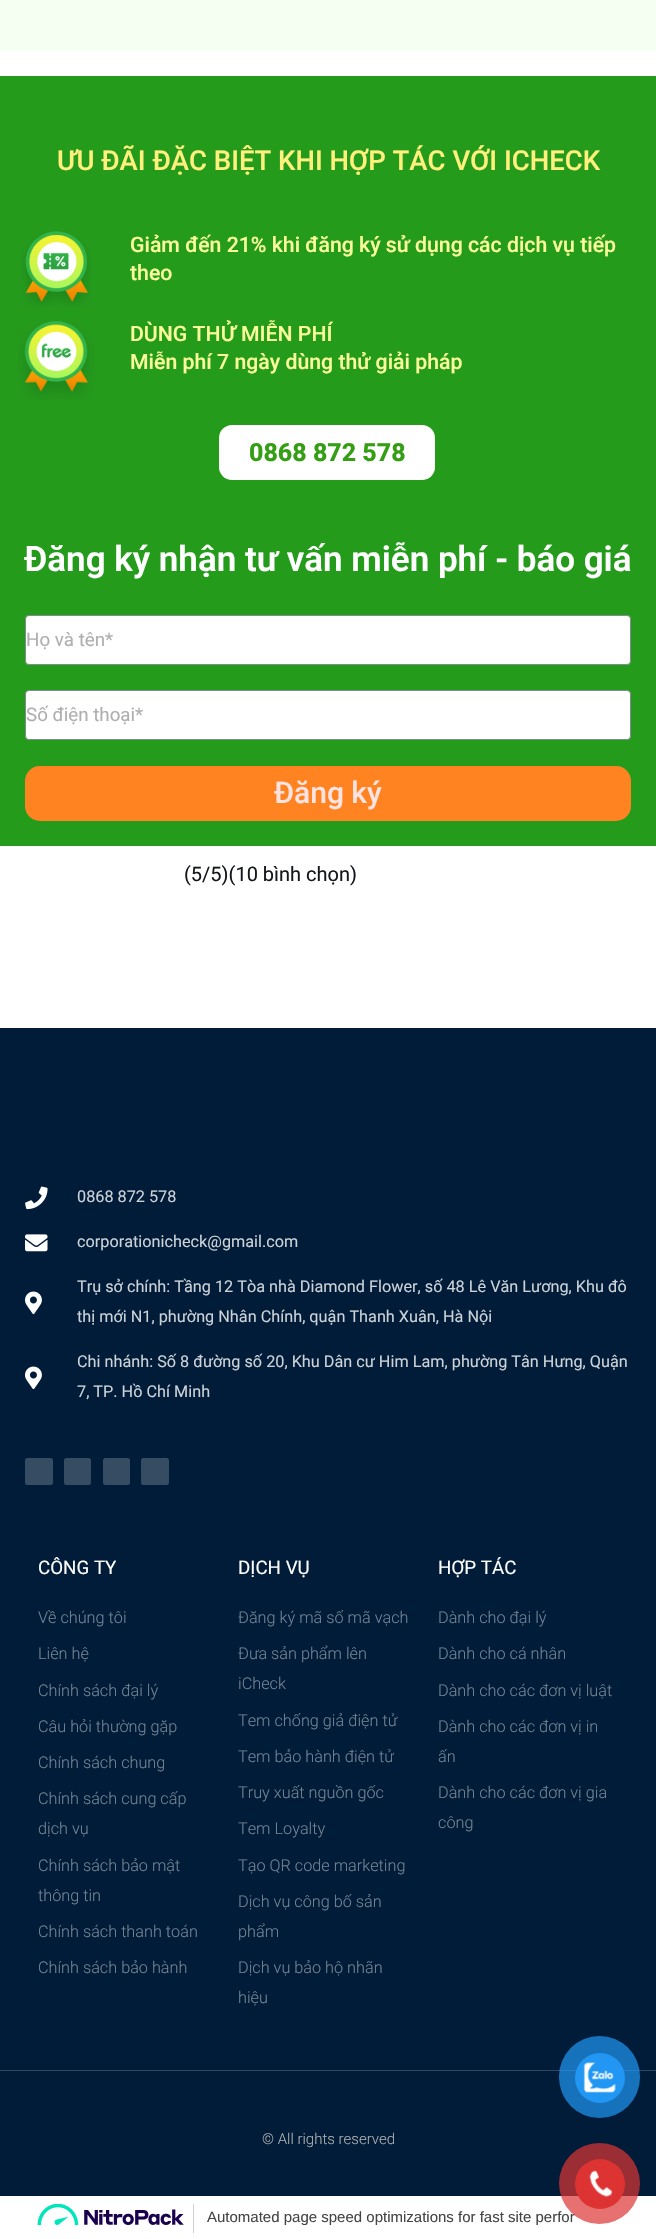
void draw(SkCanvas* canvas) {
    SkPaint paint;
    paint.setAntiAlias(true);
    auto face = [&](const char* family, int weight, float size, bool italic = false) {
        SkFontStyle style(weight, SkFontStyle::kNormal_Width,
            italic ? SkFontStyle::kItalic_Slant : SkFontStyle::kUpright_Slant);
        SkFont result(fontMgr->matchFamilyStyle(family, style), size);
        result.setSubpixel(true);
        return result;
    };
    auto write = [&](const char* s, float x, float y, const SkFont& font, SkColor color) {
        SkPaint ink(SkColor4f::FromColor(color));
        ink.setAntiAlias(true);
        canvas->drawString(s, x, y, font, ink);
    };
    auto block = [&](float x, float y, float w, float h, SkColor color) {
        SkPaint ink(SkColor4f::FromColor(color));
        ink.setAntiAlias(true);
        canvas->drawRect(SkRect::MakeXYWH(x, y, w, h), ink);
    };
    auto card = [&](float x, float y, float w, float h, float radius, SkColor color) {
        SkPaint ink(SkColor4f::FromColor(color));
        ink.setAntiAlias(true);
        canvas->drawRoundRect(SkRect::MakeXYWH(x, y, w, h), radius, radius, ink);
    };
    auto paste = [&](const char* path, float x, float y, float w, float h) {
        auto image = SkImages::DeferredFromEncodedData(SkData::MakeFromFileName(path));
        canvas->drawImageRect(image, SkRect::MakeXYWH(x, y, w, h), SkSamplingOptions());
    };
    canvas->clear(SK_ColorWHITE);
    block(0, 0, 656, 51, SkColorSetRGB(245, 255, 242));
    block(0, 76, 656, 770, SkColorSetRGB(37, 155, 28));
    auto kFont1 = face("Roboto", 500, 27.5f);
    write("ƯU ĐÃI ĐẶC BIỆT KHI HỢP TÁC VỚI ICHECK", 57, 170, kFont1, SkColorSetRGB(255, 240, 125));
    paste("pic1.png", 20, 231, 72, 77);
    auto kFont2 = face("Roboto", 500, 21.25f);
    write("Giảm đến 21% khi đăng ký sử dụng các dịch vụ tiếp", 130, 252, kFont2, SkColorSetRGB(251, 255, 154));
    write("theo", 130, 280, kFont2, SkColorSetRGB(251, 255, 154));
    paste("pic2.png", 18, 321, 76, 79);
    write("DÙNG THỬ MIỄN PHÍ", 130, 341, kFont2, SkColorSetRGB(251, 255, 154));
    write("Miễn phí 7 ngày dùng thử giải pháp", 130, 369, kFont2, SkColorSetRGB(251, 255, 154));
    card(219, 425, 216, 55, 13, SK_ColorWHITE);
    auto kFont3 = face("Roboto", 800, 25);
    write("0868 872 578", 249, 461, kFont3, SkColorSetRGB(52, 158, 21));
    auto kFont4 = face("Roboto", 600, 35);
    write("Đăng ký nhận tư vấn miễn phí - báo giá", 24, 571, kFont4, SK_ColorWHITE);
    paint.setColor(SK_ColorWHITE);
    canvas->drawRoundRect(SkRect::MakeXYWH(25.5f, 615.5f, 605, 49), 3.5f, 3.5f, paint);
    paint.setStyle(SkPaint::kStroke_Style);
    paint.setStrokeWidth(1);
    paint.setColor(SkColorSetRGB(129, 138, 145));
    canvas->drawRoundRect(SkRect::MakeXYWH(25.5f, 615.5f, 605, 49), 3.5f, 3.5f, paint);
    auto kFont5 = face("Roboto", 400, 18.75f);
    write("Họ và tên*", 26, 646, kFont5, SkColorSetRGB(175, 175, 175));
    paint.setStyle(SkPaint::kFill_Style);
    paint.setColor(SK_ColorWHITE);
    canvas->drawRoundRect(SkRect::MakeXYWH(25.5f, 690.5f, 605, 49), 3.5f, 3.5f, paint);
    paint.setStyle(SkPaint::kStroke_Style);
    paint.setColor(SkColorSetRGB(129, 138, 145));
    canvas->drawRoundRect(SkRect::MakeXYWH(25.5f, 690.5f, 605, 49), 3.5f, 3.5f, paint);
    write("Số điện thoại*", 26, 721, kFont5, SkColorSetRGB(175, 175, 175));
    card(25, 766, 606, 55, 15, SkColorSetRGB(255, 132, 33));
    auto kFont6 = face("Roboto", 500, 30);
    write("Đăng ký", 274, 803, kFont6, SkColorSetRGB(255, 227, 227));
    auto kFont7 = face("Roboto", 400, 20);
    write("(5/5)(10 bình chọn)", 184, 881, kFont7, SkColorSetRGB(20, 23, 28));
    block(0, 1028, 656, 1042, SkColorSetRGB(0, 28, 56));
    paste("pic3.png", 25, 1186, 23, 24);
    auto kFont8 = face("Roboto", 400, 16.25f);
    write("0868 872 578", 77, 1202, kFont8, SkColorSetRGB(204, 210, 215));
    paste("pic4.png", 25, 1234, 23, 18);
    write("corporationicheck@gmail.com", 77, 1247, kFont8, SkColorSetRGB(204, 210, 215));
    paste("pic5.png", 25, 1291, 17, 23);
    write("Trụ sở chính: Tầng 12 Tòa nhà Diamond Flower, số 48 Lê Văn Lương, Khu đô", 77, 1292, kFont8, SkColorSetRGB(204, 210, 215));
    write("thị mới N1, phường Nhân Chính, quận Thanh Xuân, Hà Nội", 77, 1322, kFont8, SkColorSetRGB(204, 210, 215));
    paste("pic5.png", 25, 1366, 17, 23);
    write("Chi nhánh: Số 8 đường số 20, Khu Dân cư Him Lam, phường Tân Hưng, Quận", 77, 1367, kFont8, SkColorSetRGB(204, 210, 215));
    write("7, TP. Hồ Chí Minh", 77, 1397, kFont8, SkColorSetRGB(204, 210, 215));
    card(25, 1458, 28, 27, 2.5f, SkColorSetRGB(54, 76, 98));
    card(64, 1458, 27, 27, 2.5f, SkColorSetRGB(54, 76, 98));
    card(103, 1458, 27, 27, 2.5f, SkColorSetRGB(54, 76, 98));
    card(141, 1458, 28, 27, 2.5f, SkColorSetRGB(54, 76, 98));
    write("CÔNG TY", 38, 1574, kFont5, SK_ColorWHITE);
    auto kFont9 = face("Roboto", 300, 16.25f);
    write("Về chúng tôi", 38, 1623, kFont9, SkColorSetRGB(115, 130, 146));
    write("Liên hệ", 38, 1659, kFont9, SkColorSetRGB(115, 130, 146));
    write("Chính sách đại lý", 38, 1696, kFont9, SkColorSetRGB(115, 130, 146));
    write("Câu hỏi thường gặp", 38, 1732, kFont9, SkColorSetRGB(115, 130, 146));
    write("Chính sách chung", 38, 1768, kFont9, SkColorSetRGB(115, 130, 146));
    write("Chính sách cung cấp", 38, 1804, kFont9, SkColorSetRGB(115, 130, 146));
    write("dịch vụ", 38, 1834, kFont9, SkColorSetRGB(115, 130, 146));
    write("Chính sách bảo mật", 38, 1871, kFont9, SkColorSetRGB(115, 130, 146));
    write("thông tin", 38, 1901, kFont9, SkColorSetRGB(115, 130, 146));
    write("Chính sách thanh toán", 38, 1937, kFont9, SkColorSetRGB(115, 130, 146));
    write("Chính sách bảo hành", 38, 1973, kFont9, SkColorSetRGB(115, 130, 146));
    write("DỊCH VỤ", 238, 1574, kFont5, SK_ColorWHITE);
    write("Đăng ký mã số mã vạch", 238, 1623, kFont9, SkColorSetRGB(115, 130, 146));
    write("Đưa sản phẩm lên", 238, 1659, kFont9, SkColorSetRGB(115, 130, 146));
    write("iCheck", 238, 1689, kFont9, SkColorSetRGB(115, 130, 146));
    write("Tem chống giả điện tử", 238, 1726, kFont9, SkColorSetRGB(115, 130, 146));
    write("Tem bảo hành điện tử", 238, 1762, kFont9, SkColorSetRGB(115, 130, 146));
    write("Truy xuất nguồn gốc", 238, 1798, kFont9, SkColorSetRGB(115, 130, 146));
    write("Tem Loyalty", 238, 1834, kFont9, SkColorSetRGB(115, 130, 146));
    write("Tạo QR code marketing", 238, 1871, kFont9, SkColorSetRGB(115, 130, 146));
    write("Dịch vụ công bố sản", 238, 1907, kFont9, SkColorSetRGB(115, 130, 146));
    write("phẩm", 238, 1937, kFont9, SkColorSetRGB(115, 130, 146));
    write("Dịch vụ bảo hộ nhãn", 238, 1973, kFont9, SkColorSetRGB(115, 130, 146));
    write("hiệu", 238, 2003, kFont9, SkColorSetRGB(115, 130, 146));
    write("HỢP TÁC", 438, 1574, kFont5, SK_ColorWHITE);
    write("Dành cho đại lý", 438, 1623, kFont9, SkColorSetRGB(115, 130, 146));
    write("Dành cho cá nhân", 438, 1659, kFont9, SkColorSetRGB(115, 130, 146));
    write("Dành cho các đơn vị luật", 438, 1696, kFont9, SkColorSetRGB(115, 130, 146));
    write("Dành cho các đơn vị in", 438, 1732, kFont9, SkColorSetRGB(115, 130, 146));
    write("ấn", 438, 1762, kFont9, SkColorSetRGB(115, 130, 146));
    write("Dành cho các đơn vị gia", 438, 1798, kFont9, SkColorSetRGB(115, 130, 146));
    write("công", 438, 1828, kFont9, SkColorSetRGB(115, 130, 146));
    block(0, 2071, 656, 125, SkColorSetRGB(0, 28, 56));
    block(0, 2070, 656, 1, SkColorSetRGB(48, 71, 94));
    auto kFont10 = face("Roboto", 300, 15);
    write("© All rights reserved", 262, 2144, kFont10, SkColorSetRGB(175, 175, 175));
    block(193, 2204, 1, 29, SkColorSetRGB(209, 209, 209));
    paste("pic6.png", 37, 2204, 147, 21);
    auto kFont11 = face("Liberation Sans", 400, 15);
    write("Automated page speed optimizations for fast site perfor", 207, 2222, kFont11, SkColorSetRGB(69, 69, 69));
    card(559, 2036, 81, 82, 40.5f, SkColorSetARGB(179, 33, 150, 243));
    paint.setStyle(SkPaint::kFill_Style);
    paint.setColor(SkColorSetRGB(33, 150, 243));
    canvas->drawCircle(600, 2078, 25, paint);
    paste("pic7.png", 583, 2062, 33, 31);
    paint.setColor(SkColorSetARGB(179, 221, 51, 51));
    canvas->drawCircle(599.5f, 2183.5f, 40.5f, paint);
    paint.setColor(SkColorSetRGB(221, 51, 51));
    canvas->drawCircle(600, 2184, 25, paint);
    paste("pic8.png", 589, 2170, 23, 27);
}
